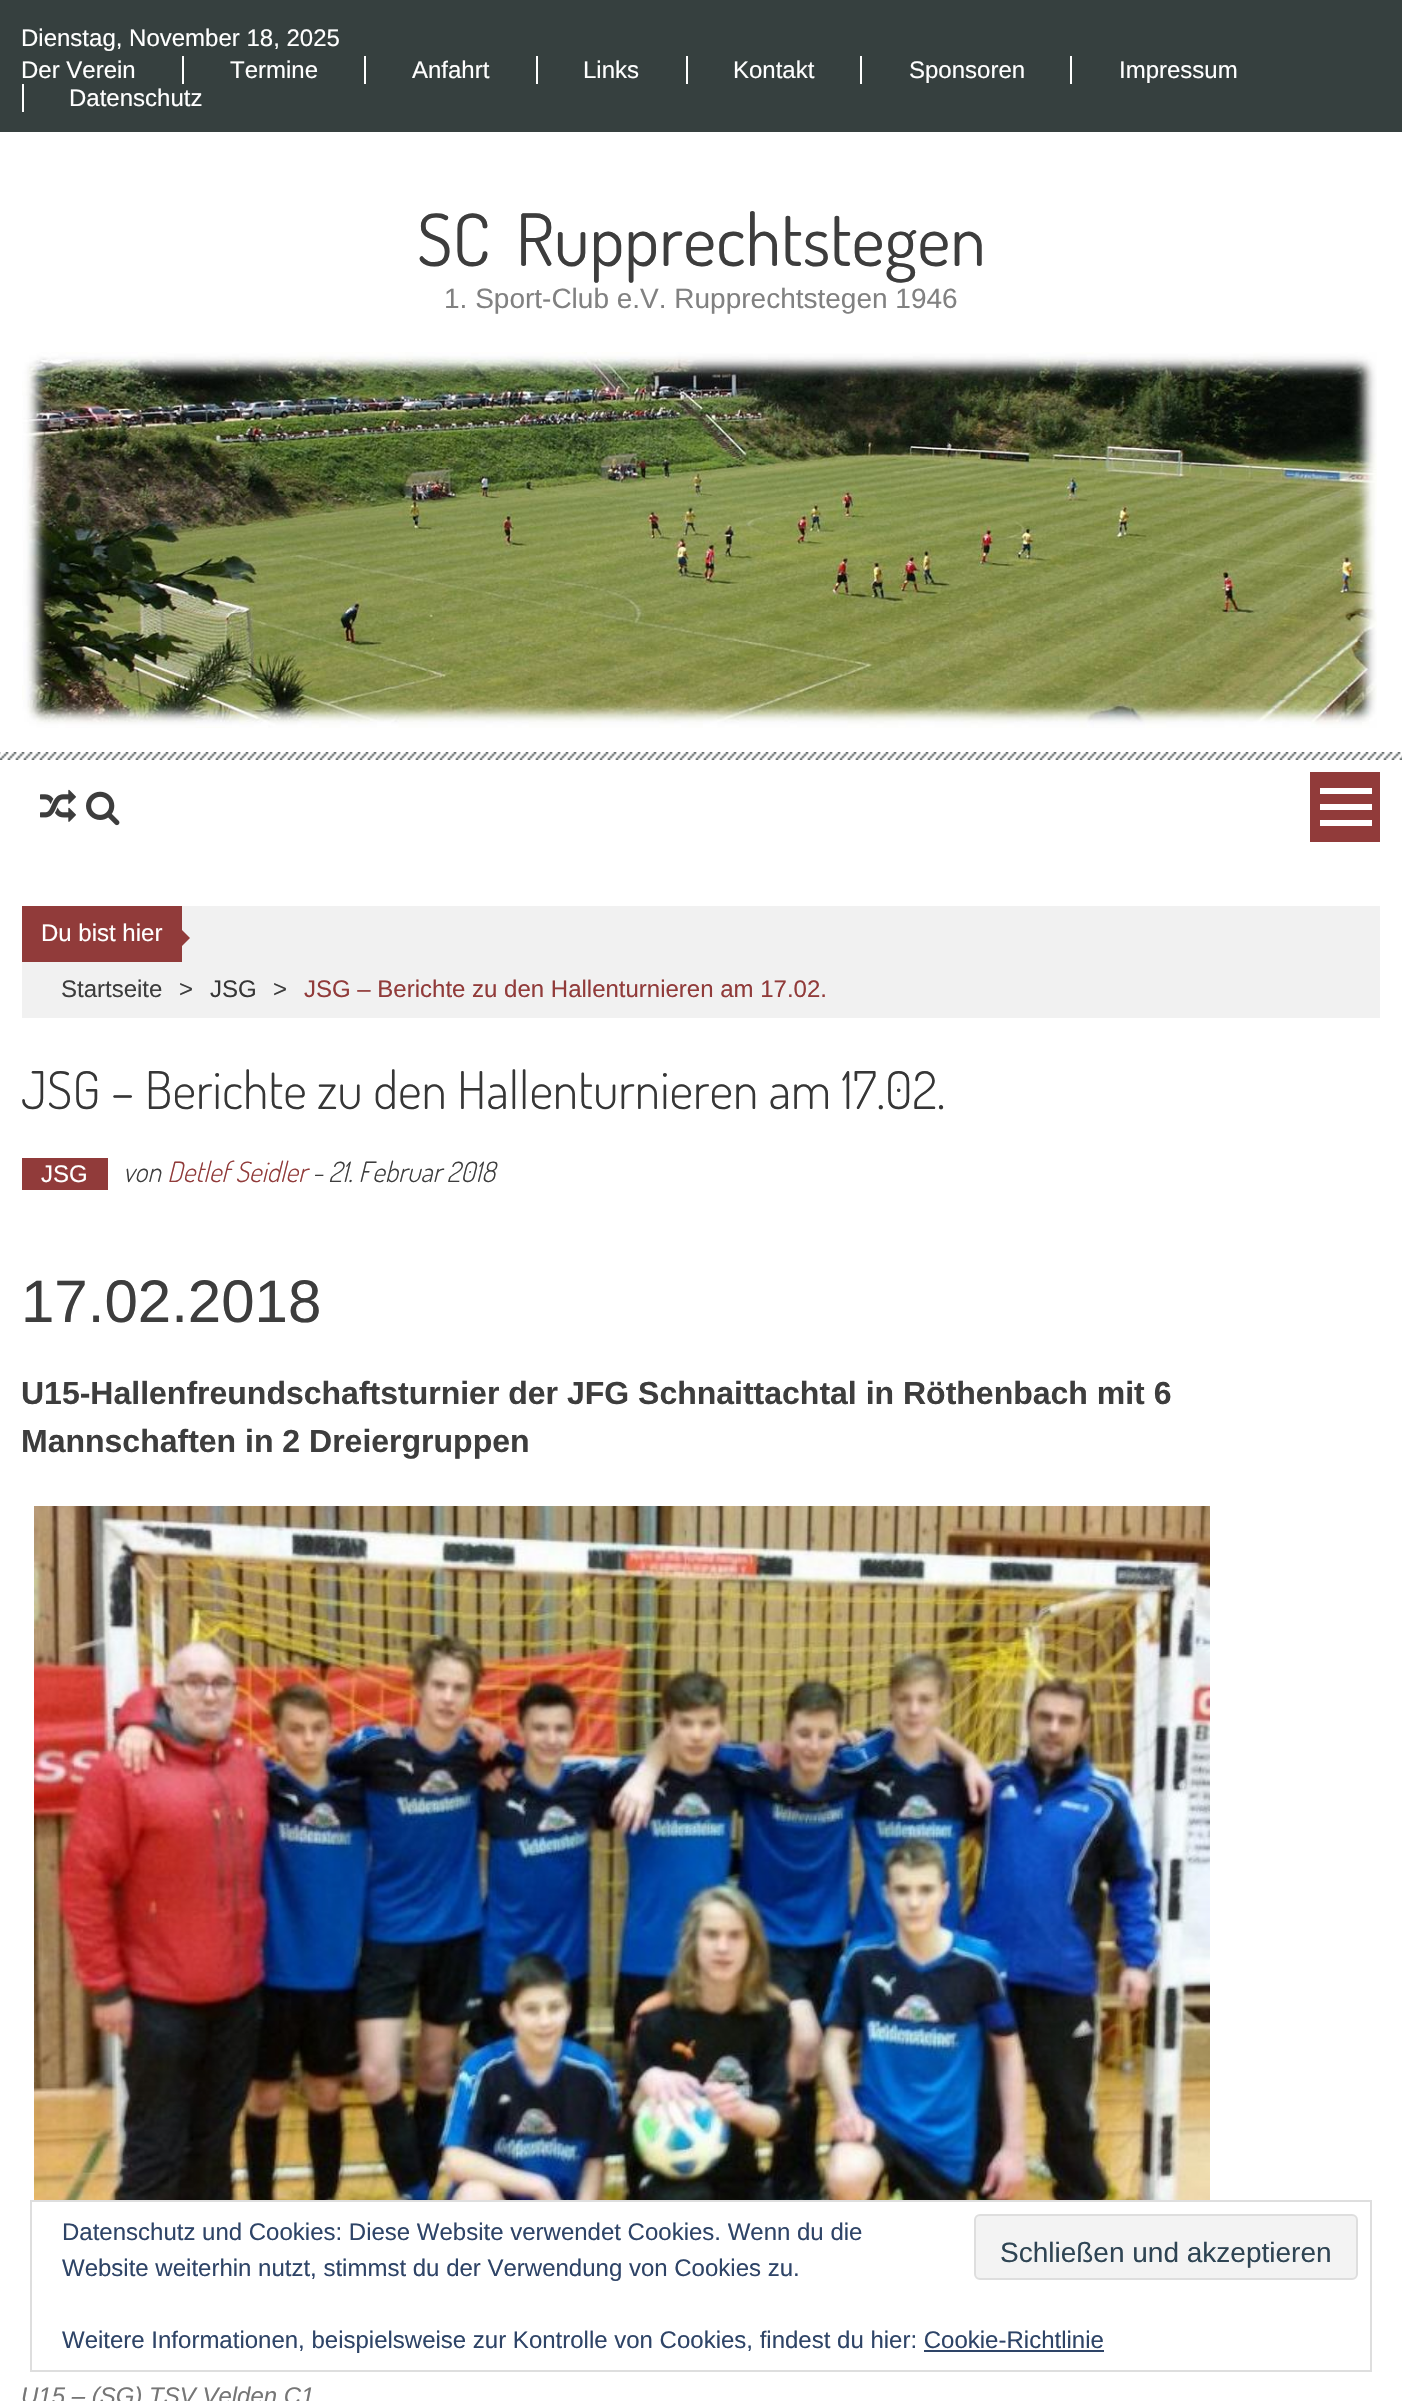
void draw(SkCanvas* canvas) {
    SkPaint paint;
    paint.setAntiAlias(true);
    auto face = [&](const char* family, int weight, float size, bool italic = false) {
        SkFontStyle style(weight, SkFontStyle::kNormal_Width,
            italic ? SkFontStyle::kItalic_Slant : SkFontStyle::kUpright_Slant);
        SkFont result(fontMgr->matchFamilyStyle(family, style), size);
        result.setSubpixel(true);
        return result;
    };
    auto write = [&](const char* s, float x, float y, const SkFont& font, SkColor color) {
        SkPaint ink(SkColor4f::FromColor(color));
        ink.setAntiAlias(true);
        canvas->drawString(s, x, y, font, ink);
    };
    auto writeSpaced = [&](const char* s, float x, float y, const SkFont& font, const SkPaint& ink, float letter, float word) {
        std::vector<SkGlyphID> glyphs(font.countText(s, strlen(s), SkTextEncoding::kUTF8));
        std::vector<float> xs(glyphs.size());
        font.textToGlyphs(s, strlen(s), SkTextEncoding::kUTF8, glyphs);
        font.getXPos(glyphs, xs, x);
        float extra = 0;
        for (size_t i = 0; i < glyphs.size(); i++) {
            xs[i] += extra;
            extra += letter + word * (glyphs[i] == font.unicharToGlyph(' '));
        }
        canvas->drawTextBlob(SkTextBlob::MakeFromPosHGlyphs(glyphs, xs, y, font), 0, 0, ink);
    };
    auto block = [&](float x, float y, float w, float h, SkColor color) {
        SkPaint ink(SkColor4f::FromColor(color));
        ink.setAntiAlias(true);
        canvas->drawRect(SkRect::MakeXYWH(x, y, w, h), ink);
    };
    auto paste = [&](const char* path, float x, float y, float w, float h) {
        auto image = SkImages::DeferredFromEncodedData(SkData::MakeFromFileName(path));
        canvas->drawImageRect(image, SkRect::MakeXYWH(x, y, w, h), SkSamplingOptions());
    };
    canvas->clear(SK_ColorWHITE);
    block(0, 0, 1402, 132, SkColorSetRGB(54, 64, 63));
    auto kFont1 = face("Liberation Sans", 400, 24);
    write("Dienstag, November 18, 2025", 21, 46, kFont1, SK_ColorWHITE);
    write("Der Verein", 21, 78, kFont1, SK_ColorWHITE);
    block(182, 56, 2, 28, SK_ColorWHITE);
    write("Termine", 230, 78, kFont1, SK_ColorWHITE);
    block(364, 56, 2, 28, SK_ColorWHITE);
    write("Anfahrt", 412, 78, kFont1, SK_ColorWHITE);
    block(536, 56, 2, 28, SK_ColorWHITE);
    write("Links", 583, 78, kFont1, SK_ColorWHITE);
    block(686, 56, 2, 28, SK_ColorWHITE);
    write("Kontakt", 733, 78, kFont1, SK_ColorWHITE);
    block(860, 56, 2, 28, SK_ColorWHITE);
    write("Sponsoren", 909, 78, kFont1, SK_ColorWHITE);
    block(1070, 56, 2, 28, SK_ColorWHITE);
    write("Impressum", 1119, 78, kFont1, SK_ColorWHITE);
    block(22, 84, 2, 28, SK_ColorWHITE);
    write("Datenschutz", 69, 106, kFont1, SK_ColorWHITE);
    paste("pic1.png", 0, 752, 1402, 8);
    auto kFont2 = face("Dosis", 400, 72);
    paint.setColor(SkColorSetRGB(61, 61, 61));
    writeSpaced("SC Rupprechtstegen", 417, 266, kFont2, paint, 0, 11);
    auto kFont3 = face("Liberation Sans", 400, 28);
    write("1. Sport-Club e.V. Rupprechtstegen 1946", 444, 308, kFont3, SkColorSetRGB(129, 129, 129));
    paste("pic2.png", 22, 352, 1355, 376);
    paste("pic3.png", 40, 789, 36, 33);
    paste("pic4.png", 86, 791, 34, 35);
    block(1310, 772, 70, 70, SkColorSetRGB(145, 59, 58));
    block(1320, 788, 52, 6, SK_ColorWHITE);
    block(1320, 804, 52, 6, SK_ColorWHITE);
    block(1320, 820, 52, 6, SK_ColorWHITE);
    block(22, 906, 1358, 112, SkColorSetRGB(241, 241, 241));
    block(22, 906, 160, 56, SkColorSetRGB(145, 59, 58));
    write("Du bist hier", 41, 941, kFont1, SK_ColorWHITE);
    paint.setColor(SkColorSetRGB(145, 59, 58));
    canvas->drawPath(SkPathBuilder().moveTo(180, 948).lineTo(180, 928).lineTo(190, 938).close().detach(), paint);
    write("Startseite", 61, 997, kFont1, SkColorSetRGB(61, 61, 61));
    write(">", 179, 997, kFont1, SkColorSetRGB(61, 61, 61));
    write("JSG", 210, 997, kFont1, SkColorSetRGB(54, 54, 54));
    write(">", 273, 997, kFont1, SkColorSetRGB(61, 61, 61));
    write("JSG – Berichte zu den Hallenturnieren am 17.02.", 304, 997, kFont1, SkColorSetRGB(145, 59, 58));
    auto kFont4 = face("Dosis", 300, 52);
    write("JSG – Berichte zu den Hallenturnieren am 17.02.", 21, 1109, kFont4, SkColorSetRGB(54, 54, 54));
    block(22, 1158, 86, 32, SkColorSetRGB(145, 59, 58));
    write("JSG", 41, 1182, kFont1, SK_ColorWHITE);
    auto kFont5 = face("Dosis", 300, 28, true);
    write("von", 123, 1182, kFont5, SkColorSetRGB(61, 61, 61));
    write("Detlef Seidler", 167, 1182, kFont5, SkColorSetRGB(145, 59, 58));
    write("- 21. Februar 2018", 312, 1182, kFont5, SkColorSetRGB(61, 61, 61));
    auto kFont6 = face("Liberation Sans", 400, 60);
    write("17.02.2018", 21, 1322, kFont6, SkColorSetRGB(61, 61, 61));
    auto kFont7 = face("Liberation Sans", 700, 32);
    write("U15-Hallenfreundschaftsturnier der JFG Schnaittachtal in Röthenbach mit 6", 21, 1404, kFont7, SkColorSetRGB(61, 61, 61));
    write("Mannschaften in 2 Dreiergruppen", 21, 1452, kFont7, SkColorSetRGB(61, 61, 61));
    paste("pic5.png", 34, 1506, 1176, 694);
    auto kFont8 = face("Liberation Sans", 400, 24, true);
    write("U15 – (SG) TSV Velden C1", 21, 2404, kFont8, SkColorSetRGB(118, 118, 118));
    paint.setStyle(SkPaint::kStroke_Style);
    paint.setStrokeWidth(2);
    paint.setColor(SkColorSetRGB(222, 222, 222));
    canvas->drawRect(SkRect::MakeXYWH(31, 2201, 1340, 170), paint);
    write("Datenschutz und Cookies: Diese Website verwendet Cookies. Wenn du die", 62, 2240, kFont1, SkColorSetRGB(46, 68, 103));
    write("Website weiterhin nutzt, stimmst du der Verwendung von Cookies zu.", 62, 2276, kFont1, SkColorSetRGB(46, 68, 103));
    paint.setStyle(SkPaint::kFill_Style);
    paint.setColor(SkColorSetRGB(243, 243, 243));
    canvas->drawRoundRect(SkRect::MakeXYWH(975, 2215, 382, 64), 5, 5, paint);
    paint.setStyle(SkPaint::kStroke_Style);
    paint.setColor(SkColorSetRGB(222, 222, 222));
    canvas->drawRoundRect(SkRect::MakeXYWH(975, 2215, 382, 64), 5, 5, paint);
    write("Schließen und akzeptieren", 1000, 2262, kFont3, SkColorSetRGB(46, 68, 83));
    write("Weitere Informationen, beispielsweise zur Kontrolle von Cookies, findest du hier: Cookie-Richtlinie", 62, 2348, kFont1, SkColorSetRGB(46, 68, 103));
    block(924, 2350, 180, 2, SkColorSetRGB(46, 68, 103));
}
